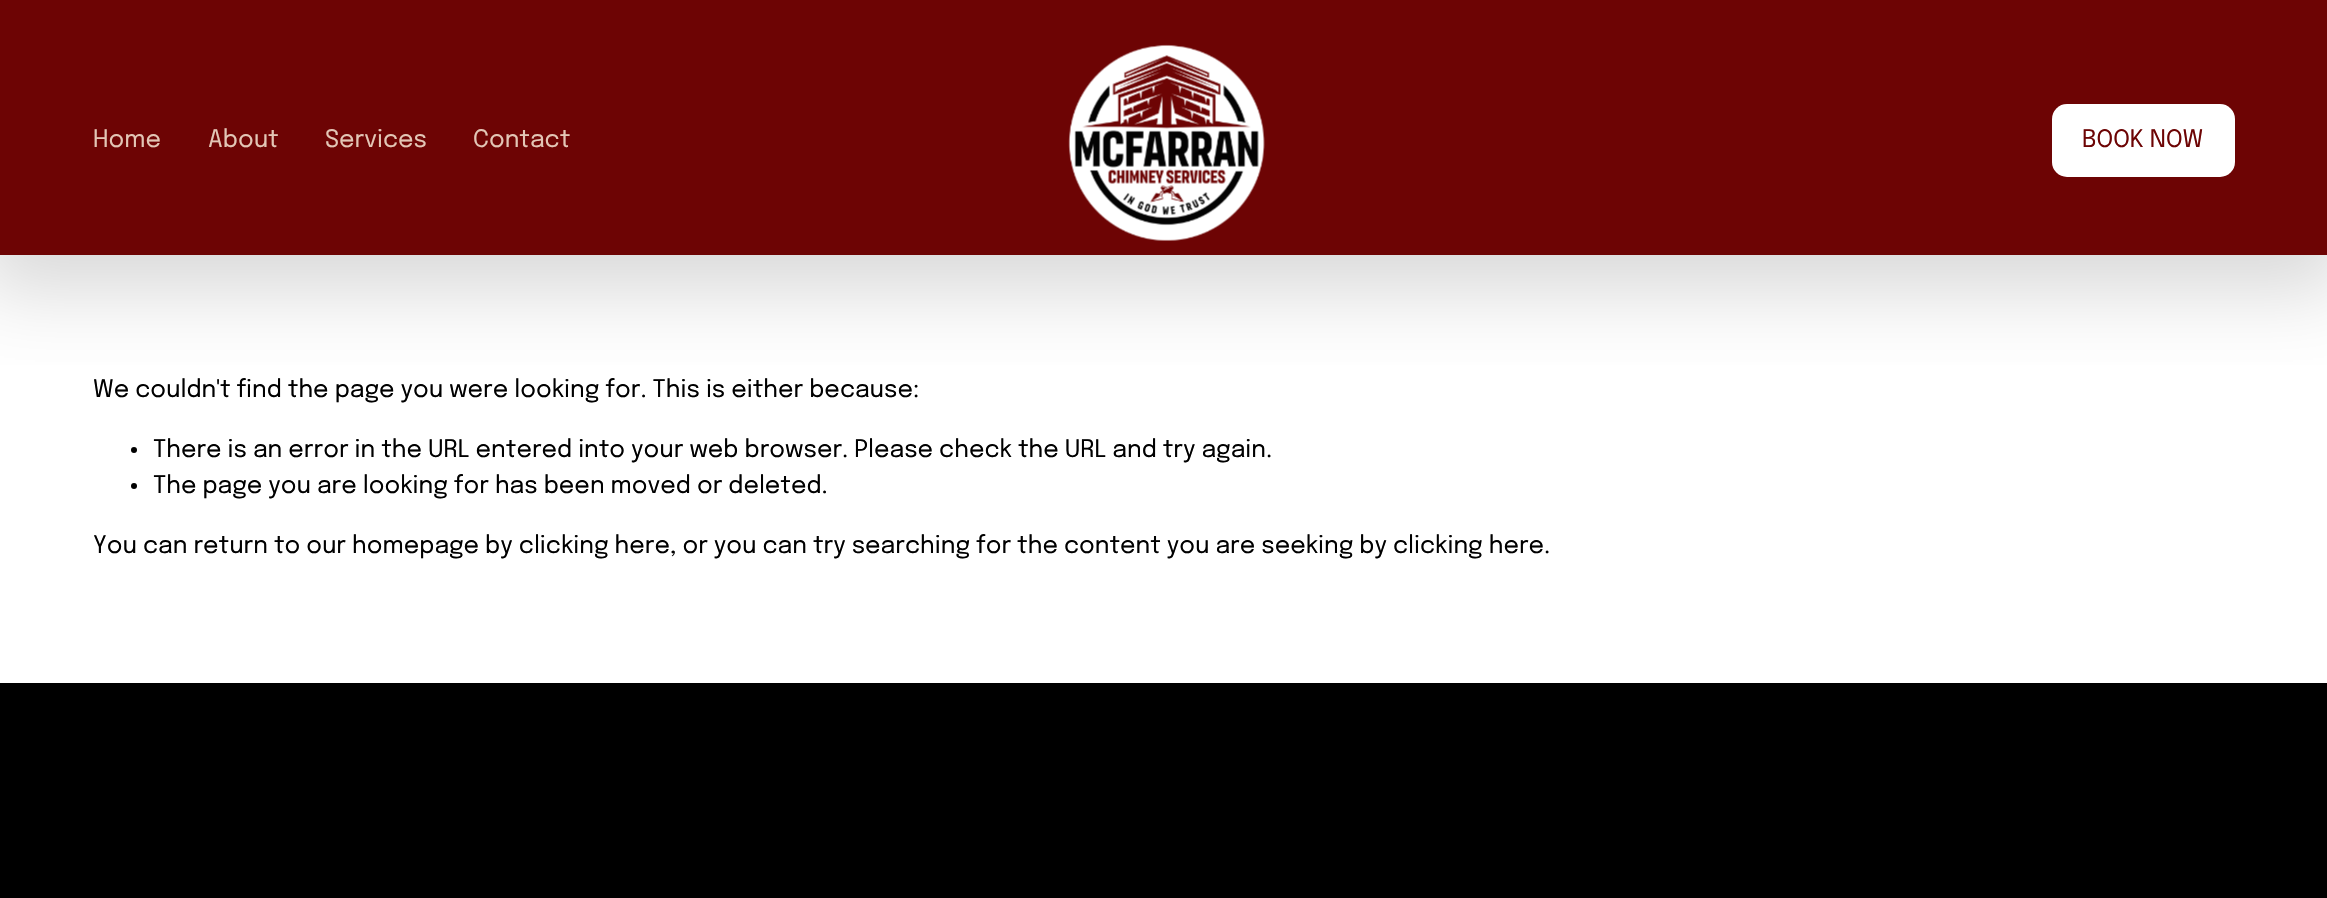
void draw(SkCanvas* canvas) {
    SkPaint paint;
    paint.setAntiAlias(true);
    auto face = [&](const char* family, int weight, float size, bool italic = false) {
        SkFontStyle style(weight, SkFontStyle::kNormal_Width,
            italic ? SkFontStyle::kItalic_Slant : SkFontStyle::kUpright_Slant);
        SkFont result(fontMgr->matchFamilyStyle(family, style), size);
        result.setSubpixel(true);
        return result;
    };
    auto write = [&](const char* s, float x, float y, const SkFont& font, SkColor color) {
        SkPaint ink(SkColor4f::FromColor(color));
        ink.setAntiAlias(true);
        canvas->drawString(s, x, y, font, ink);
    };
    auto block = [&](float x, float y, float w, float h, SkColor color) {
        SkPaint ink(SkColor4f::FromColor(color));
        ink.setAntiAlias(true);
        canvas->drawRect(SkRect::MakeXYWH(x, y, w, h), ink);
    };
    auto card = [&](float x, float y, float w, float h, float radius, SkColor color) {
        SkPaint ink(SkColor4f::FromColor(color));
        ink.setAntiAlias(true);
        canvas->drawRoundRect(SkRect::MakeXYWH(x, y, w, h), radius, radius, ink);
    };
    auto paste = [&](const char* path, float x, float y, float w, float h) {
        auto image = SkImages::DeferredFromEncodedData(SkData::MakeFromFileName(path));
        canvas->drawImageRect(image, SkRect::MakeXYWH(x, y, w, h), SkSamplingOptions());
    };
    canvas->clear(SK_ColorWHITE);
    block(0, 0, 2327, 255, SkColorSetRGB(109, 4, 4));
    canvas->save();
    canvas->clipRect(SkRect::MakeXYWH(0, 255, 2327, 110));
    paint.setColor(SkColorSetRGB(217, 217, 217));
    paint.setMaskFilter(SkMaskFilter::MakeBlur(kNormal_SkBlurStyle, 36));
    canvas->drawRect(SkRect::MakeXYWH(-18, 0, 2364, 291), paint);
    paint.setMaskFilter(nullptr);
    canvas->restore();
    auto kFont1 = face("Epilogue", 400, 24);
    write("Home", 93, 147, kFont1, SkColorSetRGB(227, 198, 182));
    write("About", 208, 147, kFont1, SkColorSetRGB(227, 198, 182));
    write("Services", 325, 147, kFont1, SkColorSetRGB(227, 198, 182));
    write("Contact", 473, 147, kFont1, SkColorSetRGB(227, 198, 182));
    paste("pic1.png", 1068, 44, 197, 197);
    card(2052, 104, 183, 73, 15, SK_ColorWHITE);
    write("BOOK NOW", 2082, 147, kFont1, SkColorSetRGB(109, 4, 4));
    write("We couldn't find the page you were looking for. This is either because:", 93, 397, kFont1, SK_ColorBLACK);
    paint.setColor(SK_ColorBLACK);
    canvas->drawCircle(134, 450, 3, paint);
    write("There is an error in the URL entered into your web browser. Please check the URL and try again.", 153, 457, kFont1, SK_ColorBLACK);
    canvas->drawCircle(134, 486, 3, paint);
    write("The page you are looking for has been moved or deleted.", 153, 493, kFont1, SK_ColorBLACK);
    write("You can return to our homepage by clicking here, or you can try searching for the content you are seeking by clicking here.", 93, 553, kFont1, SK_ColorBLACK);
    block(0, 683, 2327, 215, SK_ColorBLACK);
}
